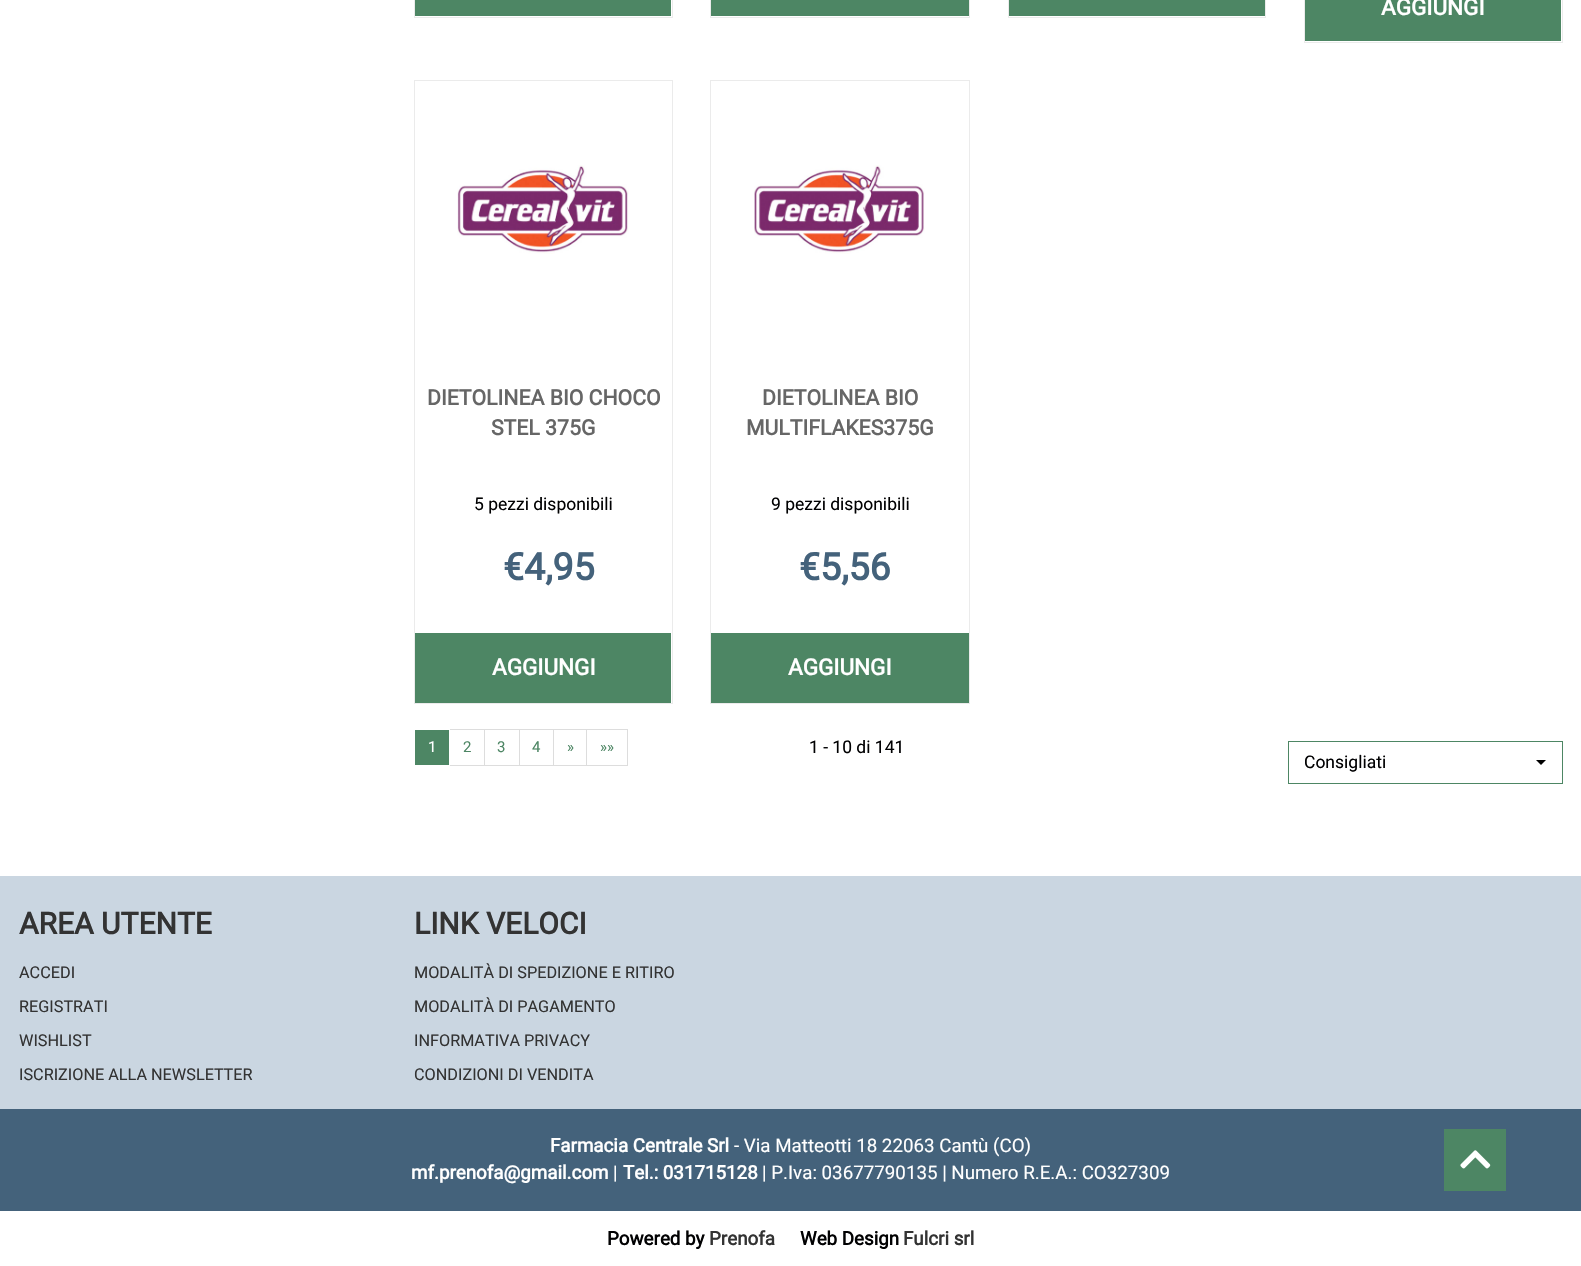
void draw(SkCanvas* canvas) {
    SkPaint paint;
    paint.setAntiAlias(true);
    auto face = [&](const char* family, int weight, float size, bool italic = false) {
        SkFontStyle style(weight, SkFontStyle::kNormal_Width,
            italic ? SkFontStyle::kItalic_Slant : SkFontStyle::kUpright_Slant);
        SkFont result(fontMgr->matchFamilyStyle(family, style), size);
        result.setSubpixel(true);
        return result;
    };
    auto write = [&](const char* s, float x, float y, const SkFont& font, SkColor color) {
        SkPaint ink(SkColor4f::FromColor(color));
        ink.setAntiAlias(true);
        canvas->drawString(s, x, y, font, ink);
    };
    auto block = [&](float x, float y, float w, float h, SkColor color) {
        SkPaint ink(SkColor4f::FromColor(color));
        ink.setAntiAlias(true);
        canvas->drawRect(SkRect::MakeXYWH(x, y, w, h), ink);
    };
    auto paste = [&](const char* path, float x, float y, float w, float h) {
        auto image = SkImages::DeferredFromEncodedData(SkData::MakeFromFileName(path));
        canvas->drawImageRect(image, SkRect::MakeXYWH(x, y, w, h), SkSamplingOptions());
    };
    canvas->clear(SK_ColorWHITE);
    paint.setStyle(SkPaint::kStroke_Style);
    paint.setStrokeWidth(1);
    paint.setColor(SkColorSetRGB(235, 235, 235));
    canvas->drawRect(SkRect::MakeXYWH(414.5f, -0.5f, 258, 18), paint);
    block(415, 0, 256, 16, SkColorSetRGB(77, 134, 100));
    canvas->drawRect(SkRect::MakeXYWH(710.5f, -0.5f, 259, 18), paint);
    block(711, 0, 258, 16, SkColorSetRGB(77, 134, 100));
    canvas->drawRect(SkRect::MakeXYWH(1008.5f, -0.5f, 257, 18), paint);
    block(1009, 0, 256, 16, SkColorSetRGB(77, 134, 100));
    canvas->drawRect(SkRect::MakeXYWH(1304.5f, -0.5f, 258, 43), paint);
    block(1305, 0, 256, 41, SkColorSetRGB(77, 134, 100));
    auto kFont1 = face("Roboto", 700, 22.5f);
    write("AGGIUNGI", 1381, 15, kFont1, SK_ColorWHITE);
    canvas->drawRect(SkRect::MakeXYWH(414.5f, 80.5f, 258, 623), paint);
    paste("pic1.png", 457, 165, 172, 89);
    auto kFont2 = face("Roboto", 700, 21.25f);
    write("DIETOLINEA BIO CHOCO", 427, 405, kFont2, SkColorSetRGB(102, 102, 102));
    write("STEL 375G", 491, 435, kFont2, SkColorSetRGB(102, 102, 102));
    auto kFont3 = face("Roboto", 400, 17.5f);
    write("5 pezzi disponibili", 474, 510, kFont3, SkColorSetRGB(1, 1, 2));
    auto kFont4 = face("Roboto", 700, 37.5f);
    write("€4,95", 503, 580, kFont4, SkColorSetRGB(68, 98, 123));
    block(415, 633, 256, 70, SkColorSetRGB(77, 134, 100));
    write("AGGIUNGI", 492, 675, kFont1, SK_ColorWHITE);
    canvas->drawRect(SkRect::MakeXYWH(710.5f, 80.5f, 259, 623), paint);
    paste("pic2.png", 754, 165, 171, 89);
    write("DIETOLINEA BIO", 762, 405, kFont2, SkColorSetRGB(102, 102, 102));
    write("MULTIFLAKES375G", 746, 435, kFont2, SkColorSetRGB(102, 102, 102));
    write("9 pezzi disponibili", 771, 510, kFont3, SkColorSetRGB(1, 1, 2));
    write("€5,56", 799, 580, kFont4, SkColorSetRGB(68, 98, 123));
    block(711, 633, 258, 70, SkColorSetRGB(77, 134, 100));
    write("AGGIUNGI", 788, 675, kFont1, SK_ColorWHITE);
    paint.setColor(SkColorSetRGB(221, 221, 221));
    canvas->drawRect(SkRect::MakeXYWH(449.5f, 729.5f, 35, 36), paint);
    paint.setStyle(SkPaint::kFill_Style);
    paint.setColor(SkColorSetRGB(77, 134, 100));
    canvas->drawRect(SkRect::MakeXYWH(414.5f, 729.5f, 35, 36), paint);
    paint.setStyle(SkPaint::kStroke_Style);
    paint.setColor(SK_ColorWHITE);
    canvas->drawRect(SkRect::MakeXYWH(414.5f, 729.5f, 35, 36), paint);
    auto kFont5 = face("Roboto", 400, 15);
    write("1", 428, 752, kFont5, SK_ColorWHITE);
    write("2", 463, 752, kFont5, SkColorSetRGB(77, 134, 100));
    paint.setColor(SkColorSetRGB(221, 221, 221));
    canvas->drawRect(SkRect::MakeXYWH(484.5f, 729.5f, 35, 36), paint);
    write("3", 497, 752, kFont5, SkColorSetRGB(77, 134, 100));
    canvas->drawRect(SkRect::MakeXYWH(519.5f, 729.5f, 34, 36), paint);
    write("4", 532, 752, kFont5, SkColorSetRGB(77, 134, 100));
    canvas->drawRect(SkRect::MakeXYWH(553.5f, 729.5f, 34, 36), paint);
    write("»", 567, 752, kFont5, SkColorSetRGB(77, 134, 100));
    block(587, 730, 1, 35, SK_ColorWHITE);
    canvas->drawRect(SkRect::MakeXYWH(586.5f, 729.5f, 41, 36), paint);
    write("»»", 600, 752, kFont5, SkColorSetRGB(77, 134, 100));
    write("1 - 10 di 141", 809, 753, kFont3, SkColorSetRGB(1, 1, 2));
    paint.setColor(SkColorSetRGB(77, 134, 100));
    canvas->drawRect(SkRect::MakeXYWH(1288.5f, 741.5f, 274, 42), paint);
    write("Consigliati", 1304, 768, kFont3, SkColorSetRGB(1, 1, 2));
    paint.setStyle(SkPaint::kFill_Style);
    paint.setColor(SK_ColorBLACK);
    canvas->drawPath(SkPathBuilder().moveTo(1536, 760).lineTo(1546, 760).lineTo(1541, 765).close().detach(), paint);
    block(0, 876, 1581, 233, SkColorSetRGB(202, 214, 225));
    auto kFont6 = face("Roboto", 700, 30);
    write("AREA UTENTE", 19, 934, kFont6, SkColorSetRGB(51, 51, 51));
    auto kFont7 = face("Roboto", 400, 16.25f);
    write("ACCEDI", 19, 978, kFont7, SkColorSetRGB(51, 51, 51));
    write("REGISTRATI", 19, 1012, kFont7, SkColorSetRGB(51, 51, 51));
    write("WISHLIST", 19, 1046, kFont7, SkColorSetRGB(51, 51, 51));
    write("ISCRIZIONE ALLA NEWSLETTER", 19, 1080, kFont7, SkColorSetRGB(51, 51, 51));
    write("LINK VELOCI", 414, 934, kFont6, SkColorSetRGB(51, 51, 51));
    write("MODALITÀ DI SPEDIZIONE E RITIRO", 414, 978, kFont7, SkColorSetRGB(51, 51, 51));
    write("MODALITÀ DI PAGAMENTO", 414, 1012, kFont7, SkColorSetRGB(51, 51, 51));
    write("INFORMATIVA PRIVACY", 414, 1046, kFont7, SkColorSetRGB(51, 51, 51));
    write("CONDIZIONI DI VENDITA", 414, 1080, kFont7, SkColorSetRGB(51, 51, 51));
    block(0, 1109, 1581, 102, SkColorSetRGB(68, 98, 123));
    auto kFont8 = face("Roboto", 700, 18.75f);
    write("Farmacia Centrale Srl", 550, 1152, kFont8, SK_ColorWHITE);
    auto kFont9 = face("Roboto", 400, 18.75f);
    write("- Via Matteotti 18 22063 Cantù (CO)", 734, 1152, kFont9, SK_ColorWHITE);
    write("mf.prenofa@gmail.com", 411, 1179, kFont8, SK_ColorWHITE);
    write("|", 613, 1179, kFont9, SK_ColorWHITE);
    write("Tel.: 031715128", 623, 1179, kFont8, SK_ColorWHITE);
    write("| P.Iva: 03677790135 | Numero R.E.A.: CO327309", 762, 1179, kFont9, SK_ColorWHITE);
    write("Powered by", 607, 1245, kFont8, SkColorSetRGB(1, 1, 2));
    write("Prenofa", 709, 1245, kFont8, SkColorSetRGB(51, 51, 51));
    write("Web Design", 800, 1245, kFont8, SkColorSetRGB(1, 1, 2));
    write("Fulcri srl", 903, 1245, kFont8, SkColorSetRGB(51, 51, 51));
    block(1444, 1129, 62, 62, SkColorSetRGB(77, 134, 100));
    paste("pic3.png", 1460, 1150, 31, 19);
}
